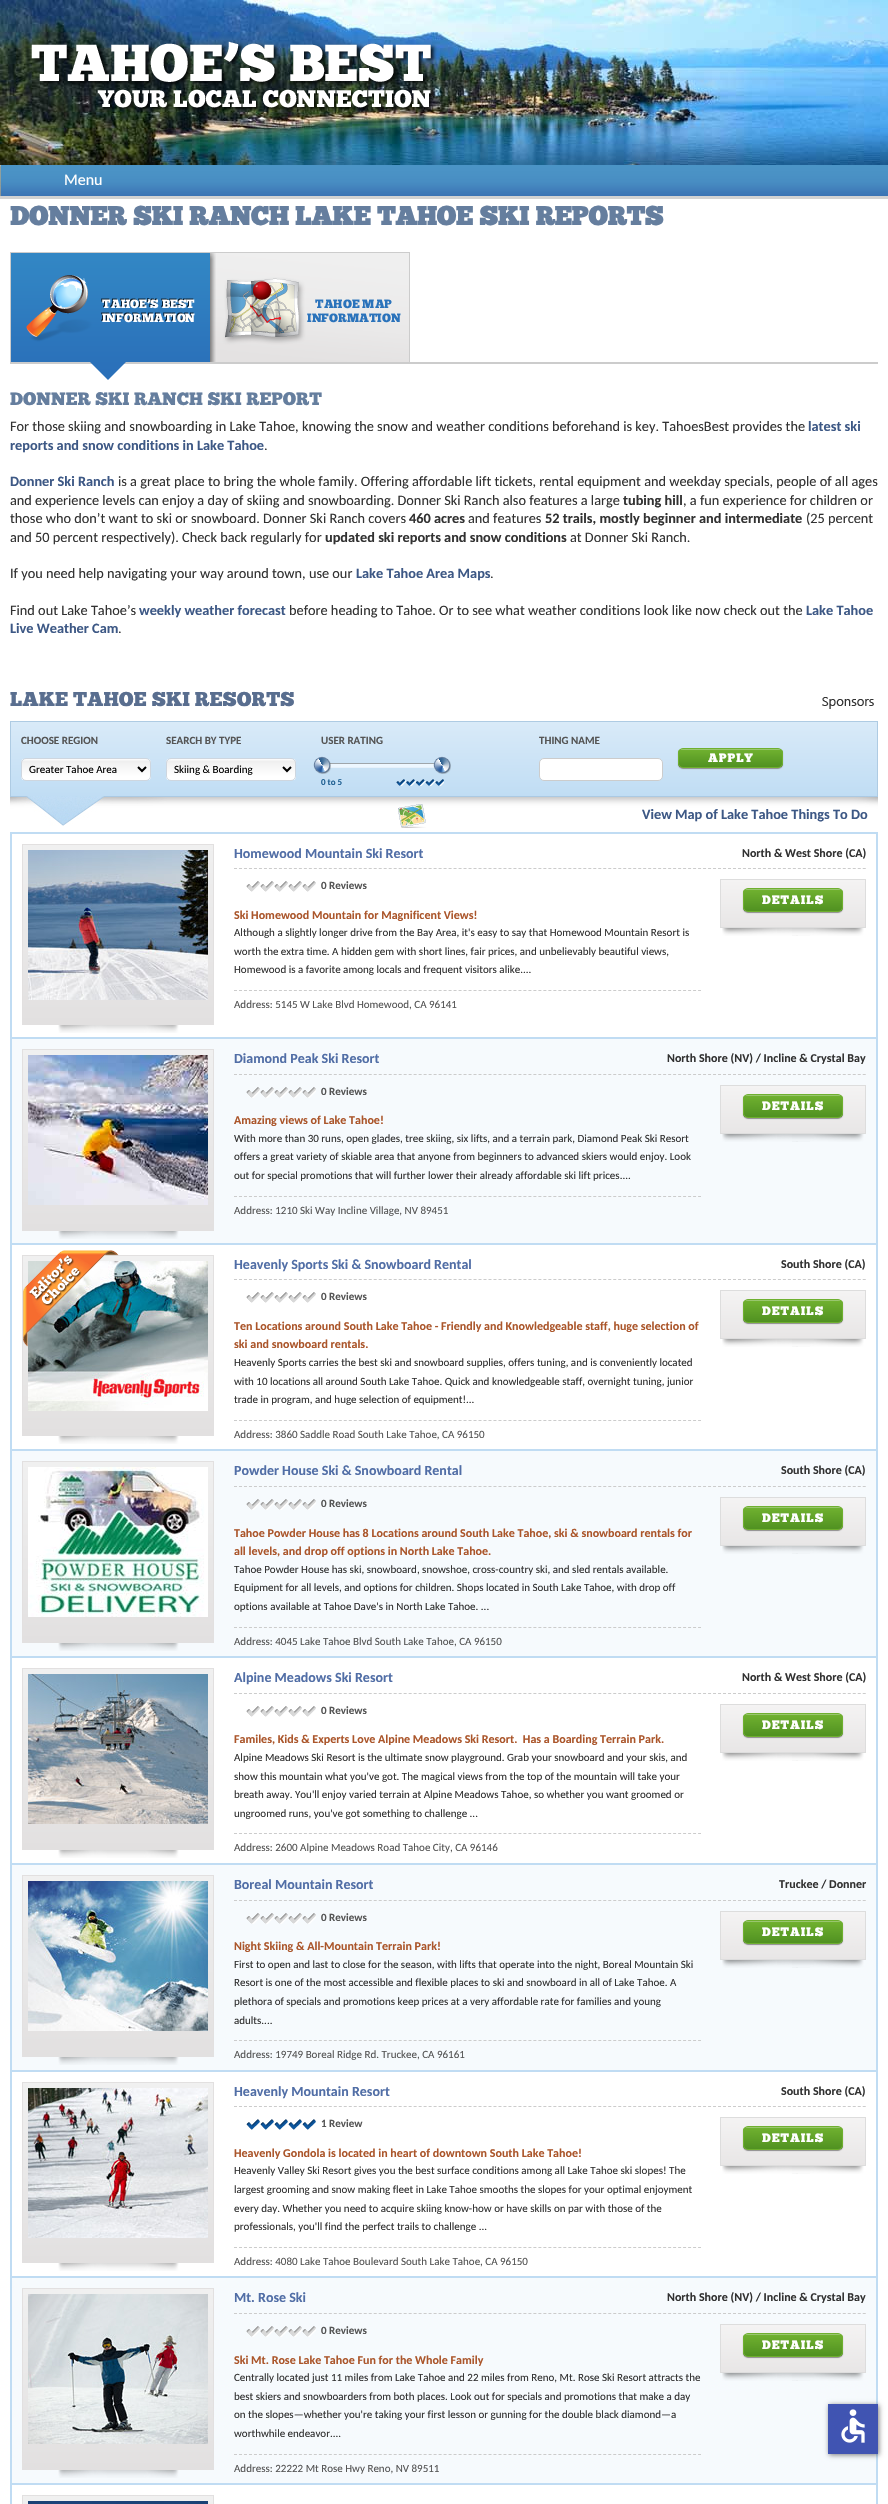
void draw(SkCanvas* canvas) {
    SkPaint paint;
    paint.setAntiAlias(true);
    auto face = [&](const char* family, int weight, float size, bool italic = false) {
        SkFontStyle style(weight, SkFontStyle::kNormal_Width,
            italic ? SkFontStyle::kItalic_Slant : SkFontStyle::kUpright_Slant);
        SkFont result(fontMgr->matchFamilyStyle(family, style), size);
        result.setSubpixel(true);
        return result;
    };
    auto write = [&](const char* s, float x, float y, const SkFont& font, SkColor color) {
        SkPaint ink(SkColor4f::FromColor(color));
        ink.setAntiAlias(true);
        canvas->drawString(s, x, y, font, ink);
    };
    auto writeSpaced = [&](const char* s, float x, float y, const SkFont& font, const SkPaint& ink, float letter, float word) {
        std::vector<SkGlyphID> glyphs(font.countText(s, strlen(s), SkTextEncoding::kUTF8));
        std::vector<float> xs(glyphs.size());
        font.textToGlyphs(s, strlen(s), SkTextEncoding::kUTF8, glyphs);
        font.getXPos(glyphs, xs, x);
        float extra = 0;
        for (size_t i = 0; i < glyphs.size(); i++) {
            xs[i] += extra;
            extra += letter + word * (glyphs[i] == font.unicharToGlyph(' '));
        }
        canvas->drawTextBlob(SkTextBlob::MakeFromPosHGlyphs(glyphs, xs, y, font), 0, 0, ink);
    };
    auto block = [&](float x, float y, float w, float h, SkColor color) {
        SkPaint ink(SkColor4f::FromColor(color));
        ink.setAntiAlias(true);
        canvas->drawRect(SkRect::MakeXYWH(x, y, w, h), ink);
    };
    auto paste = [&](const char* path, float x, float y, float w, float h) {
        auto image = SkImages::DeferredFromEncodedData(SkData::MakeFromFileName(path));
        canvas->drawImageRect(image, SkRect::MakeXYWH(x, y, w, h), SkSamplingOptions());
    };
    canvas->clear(SK_ColorWHITE);
    paste("pic1.png", 0, 165, 1, 31);
    paste("pic2.png", 0, 165, 888, 31);
    paste("pic3.png", 0, 0, 888, 165);
    paste("pic4.png", 31, 41, 406, 70);
    auto kFont1 = face("Carlito", 400, 16);
    write("Menu", 64, 185, kFont1, SK_ColorWHITE);
    block(0, 196, 888, 3, SkColorSetRGB(210, 210, 210));
    auto kFont2 = face("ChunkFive", 700, 26);
    write("DONNER SKI RANCH LAKE TAHOE SKI REPORTS", 10, 225, kFont2, SkColorSetRGB(101, 126, 158));
    paste("pic6.png", 210, 252, 200, 110);
    block(10, 362, 868, 2, SkColorSetRGB(204, 204, 204));
    paste("pic5.png", 10, 252, 206, 128);
    auto kFont3 = face("ChunkFive", 400, 18);
    write("DONNER SKI RANCH SKI REPORT", 10, 405, kFont3, SkColorSetRGB(101, 126, 158));
    auto kFont4 = face("Carlito", 400, 14.3f);
    write("For those skiing and snowboarding in Lake Tahoe, knowing the snow and weather conditions beforehand is key. TahoesBest provides the", 10, 431, kFont4, SkColorSetRGB(50, 50, 50));
    auto kFont5 = face("Carlito", 700, 14.3f);
    write("latest ski", 808, 431, kFont5, SkColorSetRGB(61, 88, 133));
    write("reports and snow conditions in Lake Tahoe", 10, 450, kFont5, SkColorSetRGB(61, 88, 133));
    write(".", 264, 450, kFont4, SkColorSetRGB(50, 50, 50));
    write("Donner Ski Ranch", 10, 486, kFont5, SkColorSetRGB(61, 88, 133));
    write("is a great place to bring the whole family. Offering affordable lift tickets, rental equipment and weekday specials, people of all ages", 118, 486, kFont4, SkColorSetRGB(50, 50, 50));
    write("and experience levels can enjoy a day of skiing and snowboarding. Donner Ski Ranch also features a large", 10, 505, kFont4, SkColorSetRGB(50, 50, 50));
    write("tubing hill", 623, 505, kFont5, SkColorSetRGB(50, 50, 50));
    write(", a fun experience for children or", 683, 505, kFont4, SkColorSetRGB(50, 50, 50));
    write("those who don’t want to ski or snowboard. Donner Ski Ranch covers", 10, 523, kFont4, SkColorSetRGB(50, 50, 50));
    write("460 acres", 409, 523, kFont5, SkColorSetRGB(50, 50, 50));
    write("and features", 468, 523, kFont4, SkColorSetRGB(50, 50, 50));
    write("52 trails, mostly beginner and intermediate", 545, 523, kFont5, SkColorSetRGB(50, 50, 50));
    write("(25 percent", 806, 523, kFont4, SkColorSetRGB(50, 50, 50));
    write("and 50 percent respectively). Check back regularly for", 10, 542, kFont4, SkColorSetRGB(50, 50, 50));
    write("updated ski reports and snow conditions", 325, 542, kFont5, SkColorSetRGB(50, 50, 50));
    write("at Donner Ski Ranch.", 570, 542, kFont4, SkColorSetRGB(50, 50, 50));
    write("If you need help navigating your way around town, use our", 10, 578, kFont4, SkColorSetRGB(50, 50, 50));
    write("Lake Tahoe Area Maps", 356, 578, kFont5, SkColorSetRGB(61, 88, 133));
    write(".", 490, 578, kFont4, SkColorSetRGB(50, 50, 50));
    write("Find out Lake Tahoe’s", 10, 615, kFont4, SkColorSetRGB(50, 50, 50));
    write("weekly weather forecast", 139, 615, kFont5, SkColorSetRGB(61, 88, 133));
    write("before heading to Tahoe. Or to see what weather conditions look like now check out the", 289, 615, kFont4, SkColorSetRGB(50, 50, 50));
    write("Lake Tahoe", 806, 615, kFont5, SkColorSetRGB(61, 88, 133));
    write("Live Weather Cam", 10, 633, kFont5, SkColorSetRGB(61, 88, 133));
    write(".", 118, 633, kFont4, SkColorSetRGB(50, 50, 50));
    auto kFont6 = face("ChunkFive", 400, 20);
    write("LAKE TAHOE SKI RESORTS", 10, 706, kFont6, SkColorSetRGB(89, 110, 143));
    paste("pic7.png", 822, 697, 52, 12);
    paste("pic8.png", 10, 796, 868, 30);
    {
        const SkColor colors[] = {SkColorSetRGB(217, 234, 248), SkColorSetRGB(192, 221, 244)};
        const float stops[] = {0, 1};
        const SkPoint ends[] = {{444, 722}, {444, 796}};
        paint.setShader(SkGradientShader::MakeLinear(ends, colors, stops, 2, SkTileMode::kClamp));
        paint.setAlpha(255);
    }
    canvas->drawRect(SkRect::MakeXYWH(11, 722, 866, 74), paint);
    block(10, 721, 868, 1, SkColorSetRGB(174, 203, 227));
    block(877, 721, 1, 75, SkColorSetRGB(174, 203, 227));
    block(10, 721, 1, 75, SkColorSetRGB(174, 203, 227));
    auto kFont7 = face("Carlito", 700, 11);
    write("CHOOSE REGION", 21, 744, kFont7, SkColorSetRGB(85, 85, 85));
    canvas->save();
    canvas->clipPath(SkPathBuilder().moveTo(26, 758).lineTo(146, 758).cubicTo(149, 758, 151, 760, 151, 763).lineTo(151, 776).cubicTo(151, 779, 149, 781, 146, 781).lineTo(26, 781).cubicTo(23, 781, 21, 779, 21, 776).lineTo(21, 763).cubicTo(21, 760, 23, 758, 26, 758).close().detach(), true);
    {
        const SkColor colors[] = {SK_ColorWHITE, SkColorSetRGB(239, 239, 239), SK_ColorWHITE};
        const float stops[] = {0, 0.1f, 0.82f};
        const SkPoint ends[] = {{86, 759}, {86, 780}};
        paint.setShader(SkGradientShader::MakeLinear(ends, colors, stops, 3, SkTileMode::kClamp));
        paint.setAlpha(255);
    }
    canvas->drawRect(SkRect::MakeXYWH(21, 759, 130, 21), paint);
    canvas->restore();
    paint.setStyle(SkPaint::kStroke_Style);
    paint.setStrokeWidth(1);
    paint.setShader(nullptr);
    paint.setColor(SkColorSetRGB(206, 214, 223));
    canvas->drawRoundRect(SkRect::MakeXYWH(21.5f, 758.5f, 129, 22), 4.5f, 4.5f, paint);
    paint.setStrokeWidth(2);
    paint.setColor(SK_ColorBLACK);
    canvas->drawPath(SkPathBuilder().moveTo(138, 767).lineTo(142, 771).lineTo(146, 767).detach(), paint);
    auto kFont8 = face("Carlito", 400, 11);
    write("Greater Tahoe Area", 29, 773, kFont8, SK_ColorBLACK);
    write("SEARCH BY TYPE", 166, 744, kFont7, SkColorSetRGB(85, 85, 85));
    canvas->save();
    canvas->clipPath(SkPathBuilder().moveTo(171, 758).lineTo(291, 758).cubicTo(294, 758, 296, 760, 296, 763).lineTo(296, 776).cubicTo(296, 779, 294, 781, 291, 781).lineTo(171, 781).cubicTo(168, 781, 166, 779, 166, 776).lineTo(166, 763).cubicTo(166, 760, 168, 758, 171, 758).close().detach(), true);
    paint.setStyle(SkPaint::kFill_Style);
    {
        const SkColor colors[] = {SK_ColorWHITE, SkColorSetRGB(239, 239, 239), SK_ColorWHITE};
        const float stops[] = {0, 0.1f, 0.82f};
        const SkPoint ends[] = {{231, 759}, {231, 780}};
        paint.setShader(SkGradientShader::MakeLinear(ends, colors, stops, 3, SkTileMode::kClamp));
        paint.setAlpha(255);
    }
    canvas->drawRect(SkRect::MakeXYWH(166, 759, 130, 21), paint);
    canvas->restore();
    paint.setStyle(SkPaint::kStroke_Style);
    paint.setStrokeWidth(1);
    paint.setShader(nullptr);
    paint.setColor(SkColorSetRGB(206, 214, 223));
    canvas->drawRoundRect(SkRect::MakeXYWH(166.5f, 758.5f, 129, 22), 4.5f, 4.5f, paint);
    paint.setStrokeWidth(2);
    paint.setColor(SK_ColorBLACK);
    canvas->drawPath(SkPathBuilder().moveTo(283, 767).lineTo(287, 771).lineTo(291, 767).detach(), paint);
    write("Skiing & Boarding", 174, 773, kFont8, SK_ColorBLACK);
    write("USER RATING", 321, 744, kFont7, SkColorSetRGB(85, 85, 85));
    paste("pic9.png", 329, 763, 106, 5);
    paste("pic10.png", 313, 756, 18, 18);
    paste("pic11.png", 433, 756, 18, 18);
    paste("pic12.png", 396, 779, 48, 7);
    auto kFont9 = face("Carlito", 700, 9);
    write("0 to 5", 321, 785, kFont9, SkColorSetRGB(33, 97, 147));
    write("THING NAME", 539, 744, kFont7, SkColorSetRGB(85, 85, 85));
    paint.setStyle(SkPaint::kFill_Style);
    paint.setColor(SK_ColorWHITE);
    canvas->drawRoundRect(SkRect::MakeXYWH(539.5f, 758.5f, 123, 22), 4.5f, 4.5f, paint);
    paint.setStyle(SkPaint::kStroke_Style);
    paint.setStrokeWidth(1);
    paint.setColor(SkColorSetRGB(204, 204, 204));
    canvas->drawRoundRect(SkRect::MakeXYWH(539.5f, 758.5f, 123, 22), 4.5f, 4.5f, paint);
    paint.setStyle(SkPaint::kFill_Style);
    paint.setColor(SkColorSetRGB(142, 141, 141));
    paint.setMaskFilter(SkMaskFilter::MakeBlur(kNormal_SkBlurStyle, 0.5f));
    canvas->drawRoundRect(SkRect::MakeXYWH(678, 749, 105, 20), 5, 5, paint);
    paint.setMaskFilter(nullptr);
    canvas->save();
    canvas->clipPath(SkPathBuilder().moveTo(683, 748).lineTo(778, 748).cubicTo(781, 748, 783, 750, 783, 753).lineTo(783, 763).cubicTo(783, 766, 781, 768, 778, 768).lineTo(683, 768).cubicTo(680, 768, 678, 766, 678, 763).lineTo(678, 753).cubicTo(678, 750, 680, 748, 683, 748).close().detach(), true);
    {
        const SkColor colors[] = {SkColorSetRGB(153, 198, 110), SkColorSetRGB(111, 176, 47), SkColorSetRGB(80, 145, 33)};
        const float stops[] = {0.05f, 0.06f, 1};
        const SkPoint ends[] = {{731, 749}, {731, 767}};
        paint.setShader(SkGradientShader::MakeLinear(ends, colors, stops, 3, SkTileMode::kClamp));
        paint.setAlpha(255);
    }
    canvas->drawRect(SkRect::MakeXYWH(678, 749, 105, 18), paint);
    canvas->restore();
    paint.setStyle(SkPaint::kStroke_Style);
    paint.setShader(nullptr);
    paint.setColor(SkColorSetRGB(111, 176, 47));
    canvas->drawRoundRect(SkRect::MakeXYWH(678.5f, 748.5f, 104, 19), 4.5f, 4.5f, paint);
    auto kFont10 = face("ChunkFive", 400, 12);
    paint.setStyle(SkPaint::kFill_Style);
    paint.setColor(SK_ColorWHITE);
    writeSpaced("APPLY", 708, 762, kFont10, paint, 1, 0);
    paste("pic13.png", 398, 804, 28, 24);
    write("View Map of Lake Tahoe Things To Do", 642, 819, kFont5, SkColorSetRGB(61, 88, 133));
    block(10, 832, 868, 2, SkColorSetRGB(192, 220, 243));
    block(10, 1037, 868, 2, SkColorSetRGB(192, 220, 243));
    block(10, 1243, 868, 2, SkColorSetRGB(192, 220, 243));
    block(10, 1449, 868, 2, SkColorSetRGB(192, 220, 243));
    block(10, 1656, 868, 2, SkColorSetRGB(192, 220, 243));
    block(10, 1863, 868, 2, SkColorSetRGB(192, 220, 243));
    block(10, 2070, 868, 2, SkColorSetRGB(192, 220, 243));
    block(10, 2276, 868, 2, SkColorSetRGB(192, 220, 243));
    block(10, 2483, 868, 2, SkColorSetRGB(192, 220, 243));
    block(10, 2483, 2, 21, SkColorSetRGB(192, 220, 243));
    block(10, 2276, 2, 209, SkColorSetRGB(192, 220, 243));
    block(10, 2070, 2, 208, SkColorSetRGB(192, 220, 243));
    block(10, 1863, 2, 209, SkColorSetRGB(192, 220, 243));
    block(10, 1656, 2, 209, SkColorSetRGB(192, 220, 243));
    block(10, 1449, 2, 209, SkColorSetRGB(192, 220, 243));
    block(10, 1243, 2, 208, SkColorSetRGB(192, 220, 243));
    block(10, 1037, 2, 208, SkColorSetRGB(192, 220, 243));
    block(10, 832, 2, 207, SkColorSetRGB(192, 220, 243));
    paste("pic14.png", 58, 1025, 121, 8);
    {
        const SkColor colors[] = {SkColorSetRGB(240, 240, 240), SkColorSetRGB(226, 224, 224)};
        const float stops[] = {0, 1};
        const SkPoint ends[] = {{118, 845}, {118, 1024}};
        paint.setShader(SkGradientShader::MakeLinear(ends, colors, stops, 2, SkTileMode::kClamp));
        paint.setAlpha(255);
    }
    canvas->drawRect(SkRect::MakeXYWH(23, 845, 190, 179), paint);
    paint.setStyle(SkPaint::kStroke_Style);
    paint.setShader(nullptr);
    paint.setColor(SkColorSetRGB(226, 224, 224));
    canvas->drawRect(SkRect::MakeXYWH(22.5f, 844.5f, 191, 180), paint);
    paste("pic15.png", 28, 850, 180, 150);
    block(876, 2483, 2, 21, SkColorSetRGB(192, 220, 243));
    block(876, 2276, 2, 209, SkColorSetRGB(192, 220, 243));
    block(876, 2070, 2, 208, SkColorSetRGB(192, 220, 243));
    block(876, 1863, 2, 209, SkColorSetRGB(192, 220, 243));
    block(876, 1656, 2, 209, SkColorSetRGB(192, 220, 243));
    block(876, 1449, 2, 209, SkColorSetRGB(192, 220, 243));
    block(876, 1243, 2, 208, SkColorSetRGB(192, 220, 243));
    block(876, 1037, 2, 208, SkColorSetRGB(192, 220, 243));
    block(876, 832, 2, 207, SkColorSetRGB(192, 220, 243));
    paint.setColor(SkColorSetRGB(204, 204, 204));
    paint.setPathEffect(SkDashPathEffect::Make({{3, 1.99f}}, 0));
    canvas->drawPath(SkPathBuilder().moveTo(234, 868.5f).lineTo(866, 868.5f).detach(), paint);
    paint.setPathEffect(nullptr);
    auto kFont11 = face("Carlito", 700, 14);
    write("Homewood Mountain Ski Resort", 234, 858, kFont11, SkColorSetRGB(81, 110, 166));
    auto kFont12 = face("Carlito", 700, 12);
    write("North & West Shore (CA)", 742, 857, kFont12, SkColorSetRGB(50, 50, 50));
    paste("pic16.png", 246, 881, 14, 11);
    paste("pic17.png", 246, 881, 14, 11);
    paste("pic16.png", 260, 881, 14, 11);
    paste("pic17.png", 260, 881, 14, 11);
    paste("pic16.png", 274, 881, 14, 11);
    paste("pic17.png", 274, 881, 14, 11);
    paste("pic16.png", 288, 881, 14, 11);
    paste("pic17.png", 288, 881, 14, 11);
    paste("pic16.png", 302, 881, 14, 11);
    paste("pic17.png", 302, 881, 14, 11);
    write("0 Reviews", 321, 889, kFont7, SkColorSetRGB(85, 85, 85));
    write("Ski Homewood Mountain for Magnificent Views!", 234, 919, kFont12, SkColorSetRGB(171, 86, 43));
    write("Although a slightly longer drive from the Bay Area, it's easy to say that Homewood Mountain Resort is", 234, 936, kFont8, SkColorSetRGB(50, 50, 50));
    write("worth the extra time. A hidden gem with short lines, fair prices, and unbelievably beautiful views,", 234, 955, kFont8, SkColorSetRGB(50, 50, 50));
    write("Homewood is a favorite among locals and frequent visitors alike....", 234, 973, kFont8, SkColorSetRGB(50, 50, 50));
    paint.setPathEffect(SkDashPathEffect::Make({{3, 1.99f}}, 0));
    canvas->drawPath(SkPathBuilder().moveTo(234, 990.5f).lineTo(701, 990.5f).detach(), paint);
    paint.setPathEffect(nullptr);
    write("Address: 5145 W Lake Blvd Homewood, CA 96141", 234, 1008, kFont8, SkColorSetRGB(85, 85, 85));
    paste("pic18.png", 722, 928, 142, 8);
    paint.setStyle(SkPaint::kFill_Style);
    {
        const SkColor colors[] = {SkColorSetRGB(244, 243, 243), SkColorSetRGB(232, 230, 230)};
        const float stops[] = {0, 1};
        const SkPoint ends[] = {{793, 880}, {793, 927}};
        paint.setShader(SkGradientShader::MakeLinear(ends, colors, stops, 2, SkTileMode::kClamp));
        paint.setAlpha(255);
    }
    canvas->drawRect(SkRect::MakeXYWH(721, 880, 144, 47), paint);
    paint.setStyle(SkPaint::kStroke_Style);
    paint.setShader(nullptr);
    paint.setColor(SkColorSetRGB(221, 221, 221));
    canvas->drawRect(SkRect::MakeXYWH(720.5f, 879.5f, 145, 48), paint);
    paint.setStyle(SkPaint::kFill_Style);
    paint.setColor(SkColorSetRGB(142, 141, 141));
    paint.setMaskFilter(SkMaskFilter::MakeBlur(kNormal_SkBlurStyle, 0.5f));
    canvas->drawRoundRect(SkRect::MakeXYWH(743, 889, 100, 24), 5, 5, paint);
    paint.setMaskFilter(nullptr);
    canvas->save();
    canvas->clipPath(SkPathBuilder().moveTo(748, 888).lineTo(838, 888).cubicTo(841, 888, 843, 890, 843, 893).lineTo(843, 907).cubicTo(843, 910, 841, 912, 838, 912).lineTo(748, 912).cubicTo(745, 912, 743, 910, 743, 907).lineTo(743, 893).cubicTo(743, 890, 745, 888, 748, 888).close().detach(), true);
    {
        const SkColor colors[] = {SkColorSetRGB(153, 198, 110), SkColorSetRGB(111, 176, 47), SkColorSetRGB(80, 145, 33)};
        const float stops[] = {0.05f, 0.06f, 1};
        const SkPoint ends[] = {{793, 889}, {793, 911}};
        paint.setShader(SkGradientShader::MakeLinear(ends, colors, stops, 3, SkTileMode::kClamp));
        paint.setAlpha(255);
    }
    canvas->drawRect(SkRect::MakeXYWH(743, 889, 100, 22), paint);
    canvas->restore();
    paint.setStyle(SkPaint::kStroke_Style);
    paint.setShader(nullptr);
    paint.setColor(SkColorSetRGB(111, 176, 47));
    canvas->drawRoundRect(SkRect::MakeXYWH(743.5f, 888.5f, 99, 23), 4.5f, 4.5f, paint);
    paint.setStyle(SkPaint::kFill_Style);
    paint.setColor(SK_ColorWHITE);
    writeSpaced("DETAILS", 762, 904, kFont10, paint, 1, 0);
    block(12, 1039, 864, 204, SkColorSetRGB(246, 250, 253));
    paste("pic19.png", 58, 1231, 121, 8);
    {
        const SkColor colors[] = {SkColorSetRGB(240, 240, 240), SkColorSetRGB(226, 224, 224)};
        const float stops[] = {0, 1};
        const SkPoint ends[] = {{118, 1050}, {118, 1230}};
        paint.setShader(SkGradientShader::MakeLinear(ends, colors, stops, 2, SkTileMode::kClamp));
        paint.setAlpha(255);
    }
    canvas->drawRect(SkRect::MakeXYWH(23, 1050, 190, 180), paint);
    paint.setStyle(SkPaint::kStroke_Style);
    paint.setShader(nullptr);
    paint.setColor(SkColorSetRGB(226, 224, 224));
    canvas->drawRect(SkRect::MakeXYWH(22.5f, 1049.5f, 191, 181), paint);
    paste("pic20.png", 28, 1055, 180, 150);
    paint.setColor(SkColorSetRGB(204, 204, 204));
    paint.setPathEffect(SkDashPathEffect::Make({{3, 1.99f}}, 0));
    canvas->drawPath(SkPathBuilder().moveTo(234, 1074.5f).lineTo(866, 1074.5f).detach(), paint);
    paint.setPathEffect(nullptr);
    write("Diamond Peak Ski Resort", 234, 1063, kFont11, SkColorSetRGB(81, 110, 166));
    write("North Shore (NV) / Incline & Crystal Bay", 667, 1062, kFont12, SkColorSetRGB(50, 50, 50));
    paste("pic21.png", 246, 1087, 14, 11);
    paste("pic22.png", 246, 1087, 14, 11);
    paste("pic21.png", 260, 1087, 14, 11);
    paste("pic22.png", 260, 1087, 14, 11);
    paste("pic21.png", 274, 1087, 14, 11);
    paste("pic22.png", 274, 1087, 14, 11);
    paste("pic21.png", 288, 1087, 14, 11);
    paste("pic22.png", 288, 1087, 14, 11);
    paste("pic21.png", 302, 1087, 14, 11);
    paste("pic22.png", 302, 1087, 14, 11);
    write("0 Reviews", 321, 1095, kFont7, SkColorSetRGB(85, 85, 85));
    write("Amazing views of Lake Tahoe!", 234, 1124, kFont12, SkColorSetRGB(171, 86, 43));
    write("With more than 30 runs, open glades, tree skiing, six lifts, and a terrain park, Diamond Peak Ski Resort", 234, 1142, kFont8, SkColorSetRGB(50, 50, 50));
    write("offers a great variety of skiable area that anyone from beginners to advanced skiers would enjoy. Look", 234, 1160, kFont8, SkColorSetRGB(50, 50, 50));
    write("out for special promotions that will further lower their already affordable ski lift prices....", 234, 1179, kFont8, SkColorSetRGB(50, 50, 50));
    paint.setPathEffect(SkDashPathEffect::Make({{3, 1.99f}}, 0));
    canvas->drawPath(SkPathBuilder().moveTo(234, 1196.5f).lineTo(701, 1196.5f).detach(), paint);
    paint.setPathEffect(nullptr);
    write("Address: 1210 Ski Way Incline Village, NV 89451", 234, 1214, kFont8, SkColorSetRGB(85, 85, 85));
    paste("pic23.png", 722, 1134, 142, 8);
    paint.setStyle(SkPaint::kFill_Style);
    {
        const SkColor colors[] = {SkColorSetRGB(244, 243, 243), SkColorSetRGB(232, 230, 230)};
        const float stops[] = {0, 1};
        const SkPoint ends[] = {{793, 1086}, {793, 1133}};
        paint.setShader(SkGradientShader::MakeLinear(ends, colors, stops, 2, SkTileMode::kClamp));
        paint.setAlpha(255);
    }
    canvas->drawRect(SkRect::MakeXYWH(721, 1086, 144, 47), paint);
    paint.setStyle(SkPaint::kStroke_Style);
    paint.setShader(nullptr);
    paint.setColor(SkColorSetRGB(221, 221, 221));
    canvas->drawRect(SkRect::MakeXYWH(720.5f, 1085.5f, 145, 48), paint);
    paint.setStyle(SkPaint::kFill_Style);
    paint.setColor(SkColorSetRGB(142, 141, 141));
    paint.setMaskFilter(SkMaskFilter::MakeBlur(kNormal_SkBlurStyle, 0.5f));
    canvas->drawRoundRect(SkRect::MakeXYWH(743, 1095, 100, 24), 5, 5, paint);
    paint.setMaskFilter(nullptr);
    canvas->save();
    canvas->clipPath(SkPathBuilder().moveTo(748, 1094).lineTo(838, 1094).cubicTo(841, 1094, 843, 1096, 843, 1099).lineTo(843, 1113).cubicTo(843, 1116, 841, 1118, 838, 1118).lineTo(748, 1118).cubicTo(745, 1118, 743, 1116, 743, 1113).lineTo(743, 1099).cubicTo(743, 1096, 745, 1094, 748, 1094).close().detach(), true);
    {
        const SkColor colors[] = {SkColorSetRGB(153, 198, 110), SkColorSetRGB(111, 176, 47), SkColorSetRGB(80, 145, 33)};
        const float stops[] = {0.05f, 0.06f, 1};
        const SkPoint ends[] = {{793, 1095}, {793, 1117}};
        paint.setShader(SkGradientShader::MakeLinear(ends, colors, stops, 3, SkTileMode::kClamp));
        paint.setAlpha(255);
    }
    canvas->drawRect(SkRect::MakeXYWH(743, 1095, 100, 22), paint);
    canvas->restore();
    paint.setStyle(SkPaint::kStroke_Style);
    paint.setShader(nullptr);
    paint.setColor(SkColorSetRGB(111, 176, 47));
    canvas->drawRoundRect(SkRect::MakeXYWH(743.5f, 1094.5f, 99, 23), 4.5f, 4.5f, paint);
    paint.setStyle(SkPaint::kFill_Style);
    paint.setColor(SK_ColorWHITE);
    writeSpaced("DETAILS", 762, 1110, kFont10, paint, 1, 0);
    paste("pic14.png", 58, 1436, 121, 8);
    {
        const SkColor colors[] = {SkColorSetRGB(240, 240, 240), SkColorSetRGB(226, 224, 224)};
        const float stops[] = {0, 1};
        const SkPoint ends[] = {{118, 1256}, {118, 1435}};
        paint.setShader(SkGradientShader::MakeLinear(ends, colors, stops, 2, SkTileMode::kClamp));
        paint.setAlpha(255);
    }
    canvas->drawRect(SkRect::MakeXYWH(23, 1256, 190, 179), paint);
    paint.setStyle(SkPaint::kStroke_Style);
    paint.setShader(nullptr);
    paint.setColor(SkColorSetRGB(226, 224, 224));
    canvas->drawRect(SkRect::MakeXYWH(22.5f, 1255.5f, 191, 180), paint);
    paste("pic24.png", 28, 1261, 180, 150);
    paste("pic25.png", 23, 1250, 96, 97);
    paint.setColor(SkColorSetRGB(204, 204, 204));
    paint.setPathEffect(SkDashPathEffect::Make({{3, 1.99f}}, 0));
    canvas->drawPath(SkPathBuilder().moveTo(234, 1279.5f).lineTo(866, 1279.5f).detach(), paint);
    paint.setPathEffect(nullptr);
    write("Heavenly Sports Ski & Snowboard Rental", 234, 1269, kFont11, SkColorSetRGB(81, 110, 166));
    write("South Shore (CA)", 781, 1268, kFont12, SkColorSetRGB(50, 50, 50));
    paste("pic16.png", 246, 1292, 14, 11);
    paste("pic17.png", 246, 1292, 14, 11);
    paste("pic16.png", 260, 1292, 14, 11);
    paste("pic17.png", 260, 1292, 14, 11);
    paste("pic16.png", 274, 1292, 14, 11);
    paste("pic17.png", 274, 1292, 14, 11);
    paste("pic16.png", 288, 1292, 14, 11);
    paste("pic17.png", 288, 1292, 14, 11);
    paste("pic16.png", 302, 1292, 14, 11);
    paste("pic17.png", 302, 1292, 14, 11);
    write("0 Reviews", 321, 1300, kFont7, SkColorSetRGB(85, 85, 85));
    write("Ten Locations around South Lake Tahoe - Friendly and Knowledgeable staff, huge selection of", 234, 1330, kFont12, SkColorSetRGB(171, 86, 43));
    write("ski and snowboard rentals.", 234, 1348, kFont12, SkColorSetRGB(171, 86, 43));
    write("Heavenly Sports carries the best ski and snowboard supplies, offers tuning, and is conveniently located", 234, 1366, kFont8, SkColorSetRGB(50, 50, 50));
    write("with 10 locations all around South Lake Tahoe. Quick and knowledgeable staff, overnight tuning, junior", 234, 1385, kFont8, SkColorSetRGB(50, 50, 50));
    write("trade in program, and huge selection of equipment!...", 234, 1403, kFont8, SkColorSetRGB(50, 50, 50));
    paint.setPathEffect(SkDashPathEffect::Make({{3, 1.99f}}, 0));
    canvas->drawPath(SkPathBuilder().moveTo(234, 1420.5f).lineTo(701, 1420.5f).detach(), paint);
    paint.setPathEffect(nullptr);
    write("Address: 3860 Saddle Road South Lake Tahoe, CA 96150", 234, 1438, kFont8, SkColorSetRGB(85, 85, 85));
    paste("pic18.png", 722, 1339, 142, 8);
    paint.setStyle(SkPaint::kFill_Style);
    {
        const SkColor colors[] = {SkColorSetRGB(244, 243, 243), SkColorSetRGB(232, 230, 230)};
        const float stops[] = {0, 1};
        const SkPoint ends[] = {{793, 1291}, {793, 1338}};
        paint.setShader(SkGradientShader::MakeLinear(ends, colors, stops, 2, SkTileMode::kClamp));
        paint.setAlpha(255);
    }
    canvas->drawRect(SkRect::MakeXYWH(721, 1291, 144, 47), paint);
    paint.setStyle(SkPaint::kStroke_Style);
    paint.setShader(nullptr);
    paint.setColor(SkColorSetRGB(221, 221, 221));
    canvas->drawRect(SkRect::MakeXYWH(720.5f, 1290.5f, 145, 48), paint);
    paint.setStyle(SkPaint::kFill_Style);
    paint.setColor(SkColorSetRGB(142, 141, 141));
    paint.setMaskFilter(SkMaskFilter::MakeBlur(kNormal_SkBlurStyle, 0.5f));
    canvas->drawRoundRect(SkRect::MakeXYWH(743, 1300, 100, 24), 5, 5, paint);
    paint.setMaskFilter(nullptr);
    canvas->save();
    canvas->clipPath(SkPathBuilder().moveTo(748, 1299).lineTo(838, 1299).cubicTo(841, 1299, 843, 1301, 843, 1304).lineTo(843, 1318).cubicTo(843, 1321, 841, 1323, 838, 1323).lineTo(748, 1323).cubicTo(745, 1323, 743, 1321, 743, 1318).lineTo(743, 1304).cubicTo(743, 1301, 745, 1299, 748, 1299).close().detach(), true);
    {
        const SkColor colors[] = {SkColorSetRGB(153, 198, 110), SkColorSetRGB(111, 176, 47), SkColorSetRGB(80, 145, 33)};
        const float stops[] = {0.05f, 0.06f, 1};
        const SkPoint ends[] = {{793, 1300}, {793, 1322}};
        paint.setShader(SkGradientShader::MakeLinear(ends, colors, stops, 3, SkTileMode::kClamp));
        paint.setAlpha(255);
    }
    canvas->drawRect(SkRect::MakeXYWH(743, 1300, 100, 22), paint);
    canvas->restore();
    paint.setStyle(SkPaint::kStroke_Style);
    paint.setShader(nullptr);
    paint.setColor(SkColorSetRGB(111, 176, 47));
    canvas->drawRoundRect(SkRect::MakeXYWH(743.5f, 1299.5f, 99, 23), 4.5f, 4.5f, paint);
    paint.setStyle(SkPaint::kFill_Style);
    paint.setColor(SK_ColorWHITE);
    writeSpaced("DETAILS", 762, 1315, kFont10, paint, 1, 0);
    block(12, 1451, 864, 205, SkColorSetRGB(246, 250, 253));
    paste("pic19.png", 58, 1643, 121, 8);
    {
        const SkColor colors[] = {SkColorSetRGB(240, 240, 240), SkColorSetRGB(226, 224, 224)};
        const float stops[] = {0, 1};
        const SkPoint ends[] = {{118, 1462}, {118, 1642}};
        paint.setShader(SkGradientShader::MakeLinear(ends, colors, stops, 2, SkTileMode::kClamp));
        paint.setAlpha(255);
    }
    canvas->drawRect(SkRect::MakeXYWH(23, 1462, 190, 180), paint);
    paint.setStyle(SkPaint::kStroke_Style);
    paint.setShader(nullptr);
    paint.setColor(SkColorSetRGB(226, 224, 224));
    canvas->drawRect(SkRect::MakeXYWH(22.5f, 1461.5f, 191, 181), paint);
    paste("pic26.png", 28, 1467, 180, 150);
    paint.setColor(SkColorSetRGB(204, 204, 204));
    paint.setPathEffect(SkDashPathEffect::Make({{3, 1.99f}}, 0));
    canvas->drawPath(SkPathBuilder().moveTo(234, 1486.5f).lineTo(866, 1486.5f).detach(), paint);
    paint.setPathEffect(nullptr);
    write("Powder House Ski & Snowboard Rental", 234, 1475, kFont11, SkColorSetRGB(81, 110, 166));
    write("South Shore (CA)", 781, 1474, kFont12, SkColorSetRGB(50, 50, 50));
    paste("pic21.png", 246, 1499, 14, 11);
    paste("pic22.png", 246, 1499, 14, 11);
    paste("pic21.png", 260, 1499, 14, 11);
    paste("pic22.png", 260, 1499, 14, 11);
    paste("pic21.png", 274, 1499, 14, 11);
    paste("pic22.png", 274, 1499, 14, 11);
    paste("pic21.png", 288, 1499, 14, 11);
    paste("pic22.png", 288, 1499, 14, 11);
    paste("pic21.png", 302, 1499, 14, 11);
    paste("pic22.png", 302, 1499, 14, 11);
    write("0 Reviews", 321, 1507, kFont7, SkColorSetRGB(85, 85, 85));
    write("Tahoe Powder House has 8 Locations around South Lake Tahoe, ski & snowboard rentals for", 234, 1537, kFont12, SkColorSetRGB(171, 86, 43));
    write("all levels, and drop off options in North Lake Tahoe.", 234, 1555, kFont12, SkColorSetRGB(171, 86, 43));
    write("Tahoe Powder House has ski, snowboard, snowshoe, cross-country ski, and sled rentals available.", 234, 1573, kFont8, SkColorSetRGB(50, 50, 50));
    write("Equipment for all levels, and options for children. Shops located in South Lake Tahoe, with drop off", 234, 1591, kFont8, SkColorSetRGB(50, 50, 50));
    write("options available at Tahoe Dave's in North Lake Tahoe. ...", 234, 1610, kFont8, SkColorSetRGB(50, 50, 50));
    paint.setPathEffect(SkDashPathEffect::Make({{3, 1.99f}}, 0));
    canvas->drawPath(SkPathBuilder().moveTo(234, 1627.5f).lineTo(701, 1627.5f).detach(), paint);
    paint.setPathEffect(nullptr);
    write("Address: 4045 Lake Tahoe Blvd South Lake Tahoe, CA 96150", 234, 1645, kFont8, SkColorSetRGB(85, 85, 85));
    paste("pic23.png", 722, 1546, 142, 8);
    paint.setStyle(SkPaint::kFill_Style);
    {
        const SkColor colors[] = {SkColorSetRGB(244, 243, 243), SkColorSetRGB(232, 230, 230)};
        const float stops[] = {0, 1};
        const SkPoint ends[] = {{793, 1498}, {793, 1545}};
        paint.setShader(SkGradientShader::MakeLinear(ends, colors, stops, 2, SkTileMode::kClamp));
        paint.setAlpha(255);
    }
    canvas->drawRect(SkRect::MakeXYWH(721, 1498, 144, 47), paint);
    paint.setStyle(SkPaint::kStroke_Style);
    paint.setShader(nullptr);
    paint.setColor(SkColorSetRGB(221, 221, 221));
    canvas->drawRect(SkRect::MakeXYWH(720.5f, 1497.5f, 145, 48), paint);
    paint.setStyle(SkPaint::kFill_Style);
    paint.setColor(SkColorSetRGB(142, 141, 141));
    paint.setMaskFilter(SkMaskFilter::MakeBlur(kNormal_SkBlurStyle, 0.5f));
    canvas->drawRoundRect(SkRect::MakeXYWH(743, 1507, 100, 24), 5, 5, paint);
    paint.setMaskFilter(nullptr);
    canvas->save();
    canvas->clipPath(SkPathBuilder().moveTo(748, 1506).lineTo(838, 1506).cubicTo(841, 1506, 843, 1508, 843, 1511).lineTo(843, 1525).cubicTo(843, 1528, 841, 1530, 838, 1530).lineTo(748, 1530).cubicTo(745, 1530, 743, 1528, 743, 1525).lineTo(743, 1511).cubicTo(743, 1508, 745, 1506, 748, 1506).close().detach(), true);
    {
        const SkColor colors[] = {SkColorSetRGB(153, 198, 110), SkColorSetRGB(111, 176, 47), SkColorSetRGB(80, 145, 33)};
        const float stops[] = {0.05f, 0.06f, 1};
        const SkPoint ends[] = {{793, 1507}, {793, 1529}};
        paint.setShader(SkGradientShader::MakeLinear(ends, colors, stops, 3, SkTileMode::kClamp));
        paint.setAlpha(255);
    }
    canvas->drawRect(SkRect::MakeXYWH(743, 1507, 100, 22), paint);
    canvas->restore();
    paint.setStyle(SkPaint::kStroke_Style);
    paint.setShader(nullptr);
    paint.setColor(SkColorSetRGB(111, 176, 47));
    canvas->drawRoundRect(SkRect::MakeXYWH(743.5f, 1506.5f, 99, 23), 4.5f, 4.5f, paint);
    paint.setStyle(SkPaint::kFill_Style);
    paint.setColor(SK_ColorWHITE);
    writeSpaced("DETAILS", 762, 1522, kFont10, paint, 1, 0);
    paste("pic14.png", 58, 1850, 121, 8);
    {
        const SkColor colors[] = {SkColorSetRGB(240, 240, 240), SkColorSetRGB(226, 224, 224)};
        const float stops[] = {0, 1};
        const SkPoint ends[] = {{118, 1669}, {118, 1849}};
        paint.setShader(SkGradientShader::MakeLinear(ends, colors, stops, 2, SkTileMode::kClamp));
        paint.setAlpha(255);
    }
    canvas->drawRect(SkRect::MakeXYWH(23, 1669, 190, 180), paint);
    paint.setStyle(SkPaint::kStroke_Style);
    paint.setShader(nullptr);
    paint.setColor(SkColorSetRGB(226, 224, 224));
    canvas->drawRect(SkRect::MakeXYWH(22.5f, 1668.5f, 191, 181), paint);
    paste("pic27.png", 28, 1674, 180, 150);
    paint.setColor(SkColorSetRGB(204, 204, 204));
    paint.setPathEffect(SkDashPathEffect::Make({{3, 1.99f}}, 0));
    canvas->drawPath(SkPathBuilder().moveTo(234, 1693.5f).lineTo(866, 1693.5f).detach(), paint);
    paint.setPathEffect(nullptr);
    write("Alpine Meadows Ski Resort", 234, 1682, kFont11, SkColorSetRGB(81, 110, 166));
    write("North & West Shore (CA)", 742, 1681, kFont12, SkColorSetRGB(50, 50, 50));
    paste("pic16.png", 246, 1706, 14, 11);
    paste("pic17.png", 246, 1706, 14, 11);
    paste("pic16.png", 260, 1706, 14, 11);
    paste("pic17.png", 260, 1706, 14, 11);
    paste("pic16.png", 274, 1706, 14, 11);
    paste("pic17.png", 274, 1706, 14, 11);
    paste("pic16.png", 288, 1706, 14, 11);
    paste("pic17.png", 288, 1706, 14, 11);
    paste("pic16.png", 302, 1706, 14, 11);
    paste("pic17.png", 302, 1706, 14, 11);
    write("0 Reviews", 321, 1714, kFont7, SkColorSetRGB(85, 85, 85));
    write("Familes, Kids & Experts Love Alpine Meadows Ski Resort.  Has a Boarding Terrain Park.", 234, 1743, kFont12, SkColorSetRGB(171, 86, 43));
    write("Alpine Meadows Ski Resort is the ultimate snow playground. Grab your snowboard and your skis, and", 234, 1761, kFont8, SkColorSetRGB(50, 50, 50));
    write("show this mountain what you've got. The magical views from the top of the mountain will take your", 234, 1780, kFont8, SkColorSetRGB(50, 50, 50));
    write("breath away. You'll enjoy varied terrain at Alpine Meadows Tahoe, so whether you want groomed or", 234, 1798, kFont8, SkColorSetRGB(50, 50, 50));
    write("ungroomed runs, you've got something to challenge ...", 234, 1817, kFont8, SkColorSetRGB(50, 50, 50));
    paint.setPathEffect(SkDashPathEffect::Make({{3, 1.99f}}, 0));
    canvas->drawPath(SkPathBuilder().moveTo(234, 1833.5f).lineTo(701, 1833.5f).detach(), paint);
    paint.setPathEffect(nullptr);
    write("Address: 2600 Alpine Meadows Road Tahoe City, CA 96146", 234, 1851, kFont8, SkColorSetRGB(85, 85, 85));
    paste("pic18.png", 722, 1753, 142, 8);
    paint.setStyle(SkPaint::kFill_Style);
    {
        const SkColor colors[] = {SkColorSetRGB(244, 243, 243), SkColorSetRGB(232, 230, 230)};
        const float stops[] = {0, 1};
        const SkPoint ends[] = {{793, 1705}, {793, 1752}};
        paint.setShader(SkGradientShader::MakeLinear(ends, colors, stops, 2, SkTileMode::kClamp));
        paint.setAlpha(255);
    }
    canvas->drawRect(SkRect::MakeXYWH(721, 1705, 144, 47), paint);
    paint.setStyle(SkPaint::kStroke_Style);
    paint.setShader(nullptr);
    paint.setColor(SkColorSetRGB(221, 221, 221));
    canvas->drawRect(SkRect::MakeXYWH(720.5f, 1704.5f, 145, 48), paint);
    paint.setStyle(SkPaint::kFill_Style);
    paint.setColor(SkColorSetRGB(142, 141, 141));
    paint.setMaskFilter(SkMaskFilter::MakeBlur(kNormal_SkBlurStyle, 0.5f));
    canvas->drawRoundRect(SkRect::MakeXYWH(743, 1714, 100, 24), 5, 5, paint);
    paint.setMaskFilter(nullptr);
    canvas->save();
    canvas->clipPath(SkPathBuilder().moveTo(748, 1713).lineTo(838, 1713).cubicTo(841, 1713, 843, 1715, 843, 1718).lineTo(843, 1732).cubicTo(843, 1735, 841, 1737, 838, 1737).lineTo(748, 1737).cubicTo(745, 1737, 743, 1735, 743, 1732).lineTo(743, 1718).cubicTo(743, 1715, 745, 1713, 748, 1713).close().detach(), true);
    {
        const SkColor colors[] = {SkColorSetRGB(153, 198, 110), SkColorSetRGB(111, 176, 47), SkColorSetRGB(80, 145, 33)};
        const float stops[] = {0.05f, 0.06f, 1};
        const SkPoint ends[] = {{793, 1714}, {793, 1736}};
        paint.setShader(SkGradientShader::MakeLinear(ends, colors, stops, 3, SkTileMode::kClamp));
        paint.setAlpha(255);
    }
    canvas->drawRect(SkRect::MakeXYWH(743, 1714, 100, 22), paint);
    canvas->restore();
    paint.setStyle(SkPaint::kStroke_Style);
    paint.setShader(nullptr);
    paint.setColor(SkColorSetRGB(111, 176, 47));
    canvas->drawRoundRect(SkRect::MakeXYWH(743.5f, 1713.5f, 99, 23), 4.5f, 4.5f, paint);
    paint.setStyle(SkPaint::kFill_Style);
    paint.setColor(SK_ColorWHITE);
    writeSpaced("DETAILS", 762, 1729, kFont10, paint, 1, 0);
    block(12, 1865, 864, 205, SkColorSetRGB(246, 250, 253));
    paste("pic19.png", 58, 2057, 121, 8);
    {
        const SkColor colors[] = {SkColorSetRGB(240, 240, 240), SkColorSetRGB(226, 224, 224)};
        const float stops[] = {0, 1};
        const SkPoint ends[] = {{118, 1876}, {118, 2056}};
        paint.setShader(SkGradientShader::MakeLinear(ends, colors, stops, 2, SkTileMode::kClamp));
        paint.setAlpha(255);
    }
    canvas->drawRect(SkRect::MakeXYWH(23, 1876, 190, 180), paint);
    paint.setStyle(SkPaint::kStroke_Style);
    paint.setShader(nullptr);
    paint.setColor(SkColorSetRGB(226, 224, 224));
    canvas->drawRect(SkRect::MakeXYWH(22.5f, 1875.5f, 191, 181), paint);
    paste("pic28.png", 28, 1881, 180, 150);
    paint.setColor(SkColorSetRGB(204, 204, 204));
    paint.setPathEffect(SkDashPathEffect::Make({{3, 1.99f}}, 0));
    canvas->drawPath(SkPathBuilder().moveTo(234, 1900.5f).lineTo(866, 1900.5f).detach(), paint);
    paint.setPathEffect(nullptr);
    write("Boreal Mountain Resort", 234, 1889, kFont11, SkColorSetRGB(81, 110, 166));
    write("Truckee / Donner", 779, 1888, kFont12, SkColorSetRGB(50, 50, 50));
    paste("pic21.png", 246, 1913, 14, 11);
    paste("pic22.png", 246, 1913, 14, 11);
    paste("pic21.png", 260, 1913, 14, 11);
    paste("pic22.png", 260, 1913, 14, 11);
    paste("pic21.png", 274, 1913, 14, 11);
    paste("pic22.png", 274, 1913, 14, 11);
    paste("pic21.png", 288, 1913, 14, 11);
    paste("pic22.png", 288, 1913, 14, 11);
    paste("pic21.png", 302, 1913, 14, 11);
    paste("pic22.png", 302, 1913, 14, 11);
    write("0 Reviews", 321, 1921, kFont7, SkColorSetRGB(85, 85, 85));
    write("Night Skiing & All-Mountain Terrain Park!", 234, 1950, kFont12, SkColorSetRGB(171, 86, 43));
    write("First to open and last to close for the season, with lifts that operate into the night, Boreal Mountain Ski", 234, 1968, kFont8, SkColorSetRGB(50, 50, 50));
    write("Resort is one of the most accessible and flexible places to ski and snowboard in all of Lake Tahoe. A", 234, 1986, kFont8, SkColorSetRGB(50, 50, 50));
    write("plethora of specials and promotions keep prices at a very affordable rate for families and young", 234, 2005, kFont8, SkColorSetRGB(50, 50, 50));
    write("adults....", 234, 2024, kFont8, SkColorSetRGB(50, 50, 50));
    paint.setPathEffect(SkDashPathEffect::Make({{3, 1.99f}}, 0));
    canvas->drawPath(SkPathBuilder().moveTo(234, 2040.5f).lineTo(701, 2040.5f).detach(), paint);
    paint.setPathEffect(nullptr);
    write("Address: 19749 Boreal Ridge Rd. Truckee, CA 96161", 234, 2058, kFont8, SkColorSetRGB(85, 85, 85));
    paste("pic23.png", 722, 1960, 142, 8);
    paint.setStyle(SkPaint::kFill_Style);
    {
        const SkColor colors[] = {SkColorSetRGB(244, 243, 243), SkColorSetRGB(232, 230, 230)};
        const float stops[] = {0, 1};
        const SkPoint ends[] = {{793, 1912}, {793, 1959}};
        paint.setShader(SkGradientShader::MakeLinear(ends, colors, stops, 2, SkTileMode::kClamp));
        paint.setAlpha(255);
    }
    canvas->drawRect(SkRect::MakeXYWH(721, 1912, 144, 47), paint);
    paint.setStyle(SkPaint::kStroke_Style);
    paint.setShader(nullptr);
    paint.setColor(SkColorSetRGB(221, 221, 221));
    canvas->drawRect(SkRect::MakeXYWH(720.5f, 1911.5f, 145, 48), paint);
    paint.setStyle(SkPaint::kFill_Style);
    paint.setColor(SkColorSetRGB(142, 141, 141));
    paint.setMaskFilter(SkMaskFilter::MakeBlur(kNormal_SkBlurStyle, 0.5f));
    canvas->drawRoundRect(SkRect::MakeXYWH(743, 1921, 100, 24), 5, 5, paint);
    paint.setMaskFilter(nullptr);
    canvas->save();
    canvas->clipPath(SkPathBuilder().moveTo(748, 1920).lineTo(838, 1920).cubicTo(841, 1920, 843, 1922, 843, 1925).lineTo(843, 1939).cubicTo(843, 1942, 841, 1944, 838, 1944).lineTo(748, 1944).cubicTo(745, 1944, 743, 1942, 743, 1939).lineTo(743, 1925).cubicTo(743, 1922, 745, 1920, 748, 1920).close().detach(), true);
    {
        const SkColor colors[] = {SkColorSetRGB(153, 198, 110), SkColorSetRGB(111, 176, 47), SkColorSetRGB(80, 145, 33)};
        const float stops[] = {0.05f, 0.06f, 1};
        const SkPoint ends[] = {{793, 1921}, {793, 1943}};
        paint.setShader(SkGradientShader::MakeLinear(ends, colors, stops, 3, SkTileMode::kClamp));
        paint.setAlpha(255);
    }
    canvas->drawRect(SkRect::MakeXYWH(743, 1921, 100, 22), paint);
    canvas->restore();
    paint.setStyle(SkPaint::kStroke_Style);
    paint.setShader(nullptr);
    paint.setColor(SkColorSetRGB(111, 176, 47));
    canvas->drawRoundRect(SkRect::MakeXYWH(743.5f, 1920.5f, 99, 23), 4.5f, 4.5f, paint);
    paint.setStyle(SkPaint::kFill_Style);
    paint.setColor(SK_ColorWHITE);
    writeSpaced("DETAILS", 762, 1936, kFont10, paint, 1, 0);
    paste("pic14.png", 58, 2263, 121, 8);
    {
        const SkColor colors[] = {SkColorSetRGB(240, 240, 240), SkColorSetRGB(226, 224, 224)};
        const float stops[] = {0, 1};
        const SkPoint ends[] = {{118, 2083}, {118, 2262}};
        paint.setShader(SkGradientShader::MakeLinear(ends, colors, stops, 2, SkTileMode::kClamp));
        paint.setAlpha(255);
    }
    canvas->drawRect(SkRect::MakeXYWH(23, 2083, 190, 179), paint);
    paint.setStyle(SkPaint::kStroke_Style);
    paint.setShader(nullptr);
    paint.setColor(SkColorSetRGB(226, 224, 224));
    canvas->drawRect(SkRect::MakeXYWH(22.5f, 2082.5f, 191, 180), paint);
    paste("pic29.png", 28, 2088, 180, 150);
    paint.setColor(SkColorSetRGB(204, 204, 204));
    paint.setPathEffect(SkDashPathEffect::Make({{3, 1.99f}}, 0));
    canvas->drawPath(SkPathBuilder().moveTo(234, 2106.5f).lineTo(866, 2106.5f).detach(), paint);
    paint.setPathEffect(nullptr);
    write("Heavenly Mountain Resort", 234, 2096, kFont11, SkColorSetRGB(81, 110, 166));
    write("South Shore (CA)", 781, 2095, kFont12, SkColorSetRGB(50, 50, 50));
    paste("pic16.png", 246, 2119, 14, 11);
    paste("pic30.png", 246, 2119, 14, 11);
    paste("pic16.png", 260, 2119, 14, 11);
    paste("pic30.png", 260, 2119, 14, 11);
    paste("pic16.png", 274, 2119, 14, 11);
    paste("pic30.png", 274, 2119, 14, 11);
    paste("pic16.png", 288, 2119, 14, 11);
    paste("pic30.png", 288, 2119, 14, 11);
    paste("pic16.png", 302, 2119, 14, 11);
    paste("pic30.png", 302, 2119, 14, 11);
    write("1 Review", 321, 2127, kFont7, SkColorSetRGB(85, 85, 85));
    write("Heavenly Gondola is located in heart of downtown South Lake Tahoe!", 234, 2157, kFont12, SkColorSetRGB(171, 86, 43));
    write("Heavenly Valley Ski Resort gives you the best surface conditions among all Lake Tahoe ski slopes! The", 234, 2174, kFont8, SkColorSetRGB(50, 50, 50));
    write("largest grooming and snow making fleet in Lake Tahoe smooths the slopes for your optimal enjoyment", 234, 2193, kFont8, SkColorSetRGB(50, 50, 50));
    write("every day. Whether you need to acquire skiing know-how or have skills on par with those of the", 234, 2212, kFont8, SkColorSetRGB(50, 50, 50));
    write("professionals, you'll find the perfect trails to challenge ...", 234, 2230, kFont8, SkColorSetRGB(50, 50, 50));
    paint.setPathEffect(SkDashPathEffect::Make({{3, 1.99f}}, 0));
    canvas->drawPath(SkPathBuilder().moveTo(234, 2247.5f).lineTo(701, 2247.5f).detach(), paint);
    paint.setPathEffect(nullptr);
    write("Address: 4080 Lake Tahoe Boulevard South Lake Tahoe, CA 96150", 234, 2265, kFont8, SkColorSetRGB(85, 85, 85));
    paste("pic18.png", 722, 2166, 142, 8);
    paint.setStyle(SkPaint::kFill_Style);
    {
        const SkColor colors[] = {SkColorSetRGB(244, 243, 243), SkColorSetRGB(232, 230, 230)};
        const float stops[] = {0, 1};
        const SkPoint ends[] = {{793, 2118}, {793, 2165}};
        paint.setShader(SkGradientShader::MakeLinear(ends, colors, stops, 2, SkTileMode::kClamp));
        paint.setAlpha(255);
    }
    canvas->drawRect(SkRect::MakeXYWH(721, 2118, 144, 47), paint);
    paint.setStyle(SkPaint::kStroke_Style);
    paint.setShader(nullptr);
    paint.setColor(SkColorSetRGB(221, 221, 221));
    canvas->drawRect(SkRect::MakeXYWH(720.5f, 2117.5f, 145, 48), paint);
    paint.setStyle(SkPaint::kFill_Style);
    paint.setColor(SkColorSetRGB(142, 141, 141));
    paint.setMaskFilter(SkMaskFilter::MakeBlur(kNormal_SkBlurStyle, 0.5f));
    canvas->drawRoundRect(SkRect::MakeXYWH(743, 2127, 100, 24), 5, 5, paint);
    paint.setMaskFilter(nullptr);
    canvas->save();
    canvas->clipPath(SkPathBuilder().moveTo(748, 2126).lineTo(838, 2126).cubicTo(841, 2126, 843, 2128, 843, 2131).lineTo(843, 2145).cubicTo(843, 2148, 841, 2150, 838, 2150).lineTo(748, 2150).cubicTo(745, 2150, 743, 2148, 743, 2145).lineTo(743, 2131).cubicTo(743, 2128, 745, 2126, 748, 2126).close().detach(), true);
    {
        const SkColor colors[] = {SkColorSetRGB(153, 198, 110), SkColorSetRGB(111, 176, 47), SkColorSetRGB(80, 145, 33)};
        const float stops[] = {0.05f, 0.06f, 1};
        const SkPoint ends[] = {{793, 2127}, {793, 2149}};
        paint.setShader(SkGradientShader::MakeLinear(ends, colors, stops, 3, SkTileMode::kClamp));
        paint.setAlpha(255);
    }
    canvas->drawRect(SkRect::MakeXYWH(743, 2127, 100, 22), paint);
    canvas->restore();
    paint.setStyle(SkPaint::kStroke_Style);
    paint.setShader(nullptr);
    paint.setColor(SkColorSetRGB(111, 176, 47));
    canvas->drawRoundRect(SkRect::MakeXYWH(743.5f, 2126.5f, 99, 23), 4.5f, 4.5f, paint);
    paint.setStyle(SkPaint::kFill_Style);
    paint.setColor(SK_ColorWHITE);
    writeSpaced("DETAILS", 762, 2142, kFont10, paint, 1, 0);
    block(12, 2278, 864, 205, SkColorSetRGB(246, 250, 253));
    paste("pic19.png", 58, 2470, 121, 8);
    {
        const SkColor colors[] = {SkColorSetRGB(240, 240, 240), SkColorSetRGB(226, 224, 224)};
        const float stops[] = {0, 1};
        const SkPoint ends[] = {{118, 2289}, {118, 2469}};
        paint.setShader(SkGradientShader::MakeLinear(ends, colors, stops, 2, SkTileMode::kClamp));
        paint.setAlpha(255);
    }
    canvas->drawRect(SkRect::MakeXYWH(23, 2289, 190, 180), paint);
    paint.setStyle(SkPaint::kStroke_Style);
    paint.setShader(nullptr);
    paint.setColor(SkColorSetRGB(226, 224, 224));
    canvas->drawRect(SkRect::MakeXYWH(22.5f, 2288.5f, 191, 181), paint);
    paste("pic31.png", 28, 2294, 180, 150);
    paint.setColor(SkColorSetRGB(204, 204, 204));
    paint.setPathEffect(SkDashPathEffect::Make({{3, 1.99f}}, 0));
    canvas->drawPath(SkPathBuilder().moveTo(234, 2313.5f).lineTo(866, 2313.5f).detach(), paint);
    paint.setPathEffect(nullptr);
    write("Mt. Rose Ski", 234, 2302, kFont11, SkColorSetRGB(81, 110, 166));
    write("North Shore (NV) / Incline & Crystal Bay", 667, 2301, kFont12, SkColorSetRGB(50, 50, 50));
    paste("pic21.png", 246, 2326, 14, 11);
    paste("pic22.png", 246, 2326, 14, 11);
    paste("pic21.png", 260, 2326, 14, 11);
    paste("pic22.png", 260, 2326, 14, 11);
    paste("pic21.png", 274, 2326, 14, 11);
    paste("pic22.png", 274, 2326, 14, 11);
    paste("pic21.png", 288, 2326, 14, 11);
    paste("pic22.png", 288, 2326, 14, 11);
    paste("pic21.png", 302, 2326, 14, 11);
    paste("pic22.png", 302, 2326, 14, 11);
    write("0 Reviews", 321, 2334, kFont7, SkColorSetRGB(85, 85, 85));
    write("Ski Mt. Rose Lake Tahoe Fun for the Whole Family", 234, 2364, kFont12, SkColorSetRGB(171, 86, 43));
    write("Centrally located just 11 miles from Lake Tahoe and 22 miles from Reno, Mt. Rose Ski Resort attracts the", 234, 2381, kFont8, SkColorSetRGB(50, 50, 50));
    write("best skiers and snowboarders from both places. Look out for specials and promotions that make a day", 234, 2400, kFont8, SkColorSetRGB(50, 50, 50));
    write("on the slopes—whether you're taking your first lesson or gunning for the double black diamond—a", 234, 2418, kFont8, SkColorSetRGB(50, 50, 50));
    write("worthwhile endeavor....", 234, 2437, kFont8, SkColorSetRGB(50, 50, 50));
    paint.setPathEffect(SkDashPathEffect::Make({{3, 1.99f}}, 0));
    canvas->drawPath(SkPathBuilder().moveTo(234, 2454.5f).lineTo(701, 2454.5f).detach(), paint);
    paint.setPathEffect(nullptr);
    write("Address: 22222 Mt Rose Hwy Reno, NV 89511", 234, 2472, kFont8, SkColorSetRGB(85, 85, 85));
    paste("pic23.png", 722, 2373, 142, 8);
    paint.setStyle(SkPaint::kFill_Style);
    {
        const SkColor colors[] = {SkColorSetRGB(244, 243, 243), SkColorSetRGB(232, 230, 230)};
        const float stops[] = {0, 1};
        const SkPoint ends[] = {{793, 2325}, {793, 2372}};
        paint.setShader(SkGradientShader::MakeLinear(ends, colors, stops, 2, SkTileMode::kClamp));
        paint.setAlpha(255);
    }
    canvas->drawRect(SkRect::MakeXYWH(721, 2325, 144, 47), paint);
    paint.setStyle(SkPaint::kStroke_Style);
    paint.setShader(nullptr);
    paint.setColor(SkColorSetRGB(221, 221, 221));
    canvas->drawRect(SkRect::MakeXYWH(720.5f, 2324.5f, 145, 48), paint);
    paint.setStyle(SkPaint::kFill_Style);
    paint.setColor(SkColorSetRGB(142, 141, 141));
    paint.setMaskFilter(SkMaskFilter::MakeBlur(kNormal_SkBlurStyle, 0.5f));
    canvas->drawRoundRect(SkRect::MakeXYWH(743, 2334, 100, 24), 5, 5, paint);
    paint.setMaskFilter(nullptr);
    canvas->save();
    canvas->clipPath(SkPathBuilder().moveTo(748, 2333).lineTo(838, 2333).cubicTo(841, 2333, 843, 2335, 843, 2338).lineTo(843, 2352).cubicTo(843, 2355, 841, 2357, 838, 2357).lineTo(748, 2357).cubicTo(745, 2357, 743, 2355, 743, 2352).lineTo(743, 2338).cubicTo(743, 2335, 745, 2333, 748, 2333).close().detach(), true);
    {
        const SkColor colors[] = {SkColorSetRGB(153, 198, 110), SkColorSetRGB(111, 176, 47), SkColorSetRGB(80, 145, 33)};
        const float stops[] = {0.05f, 0.06f, 1};
        const SkPoint ends[] = {{793, 2334}, {793, 2356}};
        paint.setShader(SkGradientShader::MakeLinear(ends, colors, stops, 3, SkTileMode::kClamp));
        paint.setAlpha(255);
    }
    canvas->drawRect(SkRect::MakeXYWH(743, 2334, 100, 22), paint);
    canvas->restore();
    paint.setStyle(SkPaint::kStroke_Style);
    paint.setShader(nullptr);
    paint.setColor(SkColorSetRGB(111, 176, 47));
    canvas->drawRoundRect(SkRect::MakeXYWH(743.5f, 2333.5f, 99, 23), 4.5f, 4.5f, paint);
    paint.setStyle(SkPaint::kFill_Style);
    paint.setColor(SK_ColorWHITE);
    writeSpaced("DETAILS", 762, 2349, kFont10, paint, 1, 0);
    {
        const SkColor colors[] = {SkColorSetRGB(240, 240, 240), SkColorSetRGB(226, 224, 224)};
        const float stops[] = {0, 1};
        const SkPoint ends[] = {{118, 2496}, {118, 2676}};
        paint.setShader(SkGradientShader::MakeLinear(ends, colors, stops, 2, SkTileMode::kClamp));
        paint.setAlpha(255);
    }
    canvas->drawRect(SkRect::MakeXYWH(22, 2496, 192, 8), paint);
    paint.setStyle(SkPaint::kStroke_Style);
    paint.setShader(nullptr);
    paint.setColor(SkColorSetRGB(226, 224, 224));
    canvas->drawRect(SkRect::MakeXYWH(22.5f, 2495.5f, 191, 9), paint);
    paste("pic32.png", 28, 2501, 180, 3);
    paint.setStyle(SkPaint::kFill_Style);
    paint.setColor(SkColorSetARGB(128, 0, 0, 0));
    paint.setMaskFilter(SkMaskFilter::MakeBlur(kNormal_SkBlurStyle, 2.5f));
    canvas->drawRect(SkRect::MakeXYWH(829, 2405, 50, 50), paint);
    paint.setMaskFilter(nullptr);
    block(828, 2404, 50, 50, SkColorSetRGB(64, 84, 178));
    paste("pic33.png", 841, 2409, 24, 34);
}
